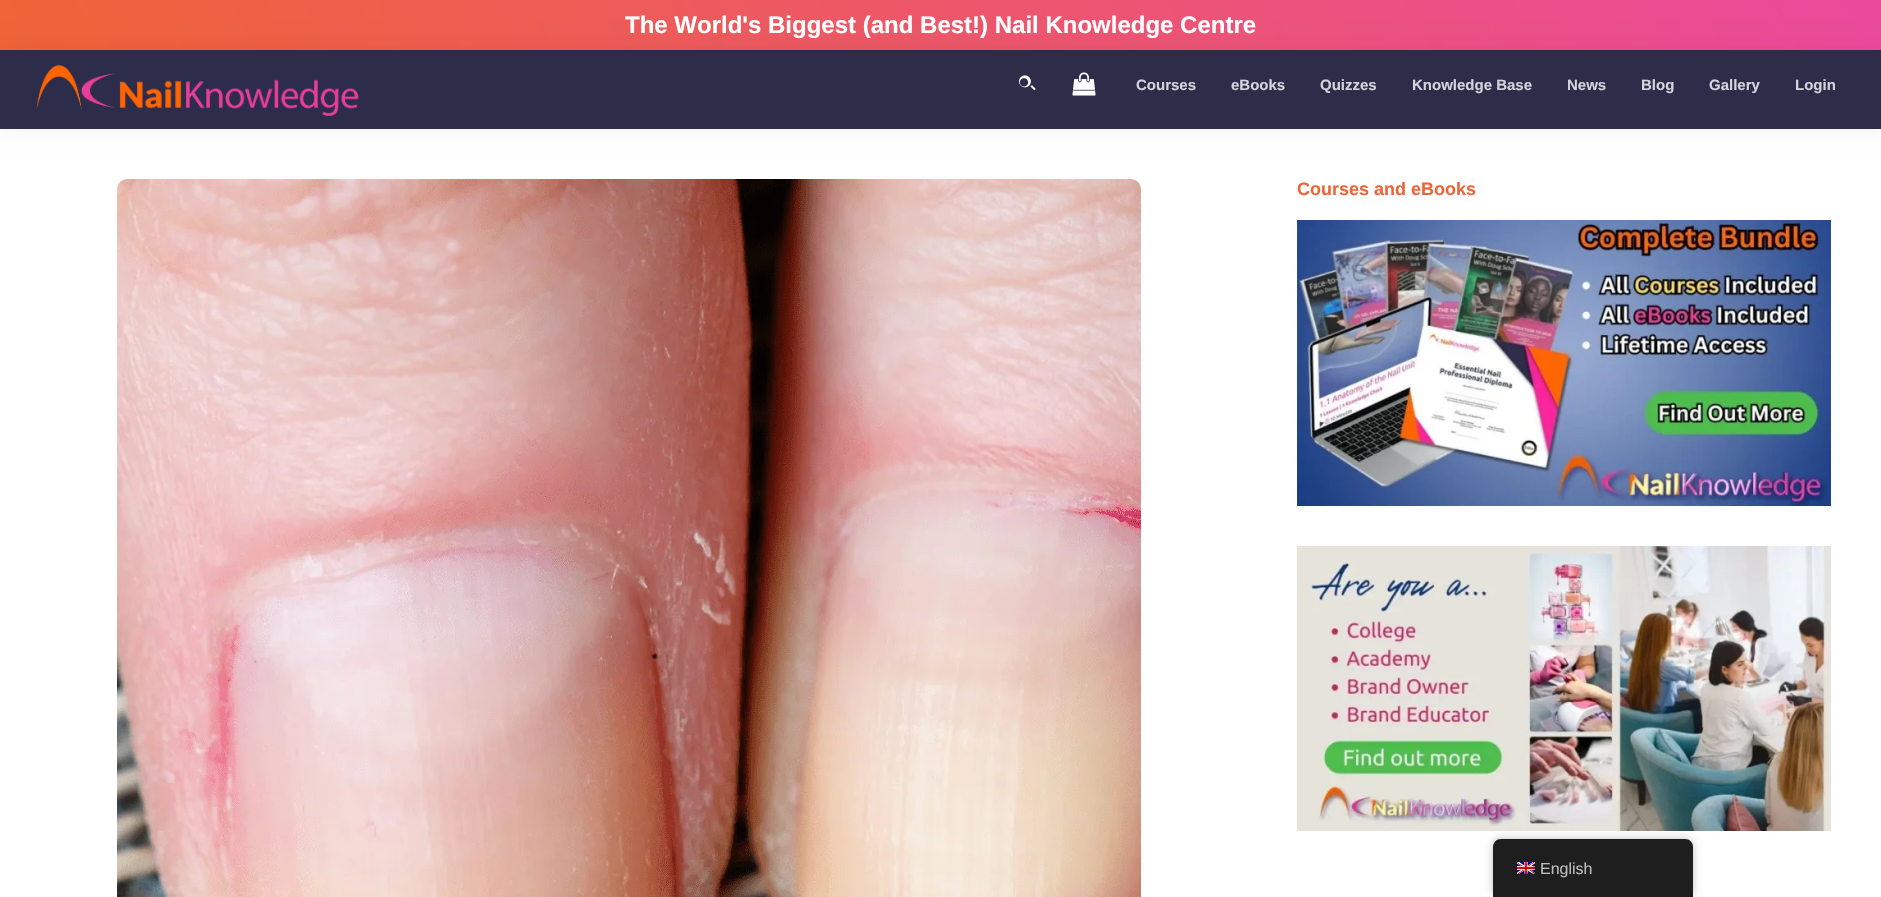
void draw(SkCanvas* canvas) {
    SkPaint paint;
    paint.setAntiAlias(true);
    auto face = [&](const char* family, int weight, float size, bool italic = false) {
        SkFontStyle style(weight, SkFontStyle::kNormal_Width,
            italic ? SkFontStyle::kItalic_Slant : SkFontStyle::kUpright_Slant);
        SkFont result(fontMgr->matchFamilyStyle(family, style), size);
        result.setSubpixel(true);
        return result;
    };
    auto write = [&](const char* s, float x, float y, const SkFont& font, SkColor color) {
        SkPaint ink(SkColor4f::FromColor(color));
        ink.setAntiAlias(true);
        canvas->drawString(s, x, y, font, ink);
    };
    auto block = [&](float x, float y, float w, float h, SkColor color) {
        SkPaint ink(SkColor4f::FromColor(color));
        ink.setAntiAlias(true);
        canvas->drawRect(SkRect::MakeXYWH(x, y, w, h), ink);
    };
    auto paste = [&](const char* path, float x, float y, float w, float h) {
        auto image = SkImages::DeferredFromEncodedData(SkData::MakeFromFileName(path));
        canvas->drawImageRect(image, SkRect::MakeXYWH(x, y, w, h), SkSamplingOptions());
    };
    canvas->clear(SK_ColorWHITE);
    {
        const SkColor colors[] = {SkColorSetRGB(239, 100, 55), SkColorSetRGB(235, 74, 156)};
        const float stops[] = {0, 1};
        const SkPoint ends[] = {{224, 438}, {1657, -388}};
        paint.setShader(SkGradientShader::MakeLinear(ends, colors, stops, 2, SkTileMode::kClamp));
        paint.setAlpha(255);
    }
    canvas->drawRect(SkRect::MakeXYWH(0, 0, 1881, 50), paint);
    auto kFont1 = face("Liberation Sans", 700, 24);
    write("The World's Biggest (and Best!) Nail Knowledge Centre", 625, 33, kFont1, SK_ColorWHITE);
    paint.setShader(nullptr);
    paint.setColor(SkColorSetARGB(13, 0, 0, 0));
    paint.setMaskFilter(SkMaskFilter::MakeBlur(kNormal_SkBlurStyle, 10));
    canvas->drawRect(SkRect::MakeXYWH(0, 50, 1881, 79), paint);
    paint.setMaskFilter(nullptr);
    block(0, 50, 1881, 79, SkColorSetRGB(45, 45, 73));
    paste("pic1.png", 36, 65, 323, 51);
    paste("pic2.png", 1019, 75, 17, 16);
    paste("pic3.png", 1072, 72, 24, 24);
    auto kFont2 = face("Liberation Sans", 700, 15);
    write("Courses", 1136, 90, kFont2, SkColorSetRGB(209, 213, 220));
    write("eBooks", 1231, 90, kFont2, SkColorSetRGB(209, 213, 220));
    write("Quizzes", 1320, 90, kFont2, SkColorSetRGB(209, 213, 220));
    write("Knowledge Base", 1412, 90, kFont2, SkColorSetRGB(209, 213, 220));
    write("News", 1567, 90, kFont2, SkColorSetRGB(209, 213, 220));
    write("Blog", 1641, 90, kFont2, SkColorSetRGB(209, 213, 220));
    write("Gallery", 1709, 90, kFont2, SkColorSetRGB(209, 213, 220));
    write("Login", 1795, 90, kFont2, SkColorSetRGB(209, 213, 220));
    paste("pic4.png", 117, 179, 1024, 718);
    auto kFont3 = face("Liberation Sans", 700, 18);
    write("Courses and eBooks", 1297, 195, kFont3, SkColorSetRGB(239, 100, 55));
    paste("pic5.png", 1297, 220, 534, 286);
    paste("pic6.png", 1297, 546, 534, 285);
    paint.setColor(SkColorSetARGB(64, 0, 0, 0));
    paint.setMaskFilter(SkMaskFilter::MakeBlur(kNormal_SkBlurStyle, 4));
    canvas->drawRoundRect(SkRect::MakeXYWH(1493, 839, 200, 58), 8, 8, paint);
    paint.setMaskFilter(nullptr);
    paint.setColor(SkColorSetRGB(30, 30, 30));
    canvas->drawPath(SkPathBuilder().moveTo(1501, 839).lineTo(1685, 839).cubicTo(1689.5f, 839, 1693, 842.5f, 1693, 847).lineTo(1693, 897).lineTo(1493, 897).lineTo(1493, 847).cubicTo(1493, 842.5f, 1496.5f, 839, 1501, 839).close().detach(), paint);
    paste("pic7.png", 1517, 862, 18, 12);
    auto kFont4 = face("Liberation Sans", 400, 16);
    write("English", 1540, 874, kFont4, SkColorSetRGB(189, 189, 189));
}
